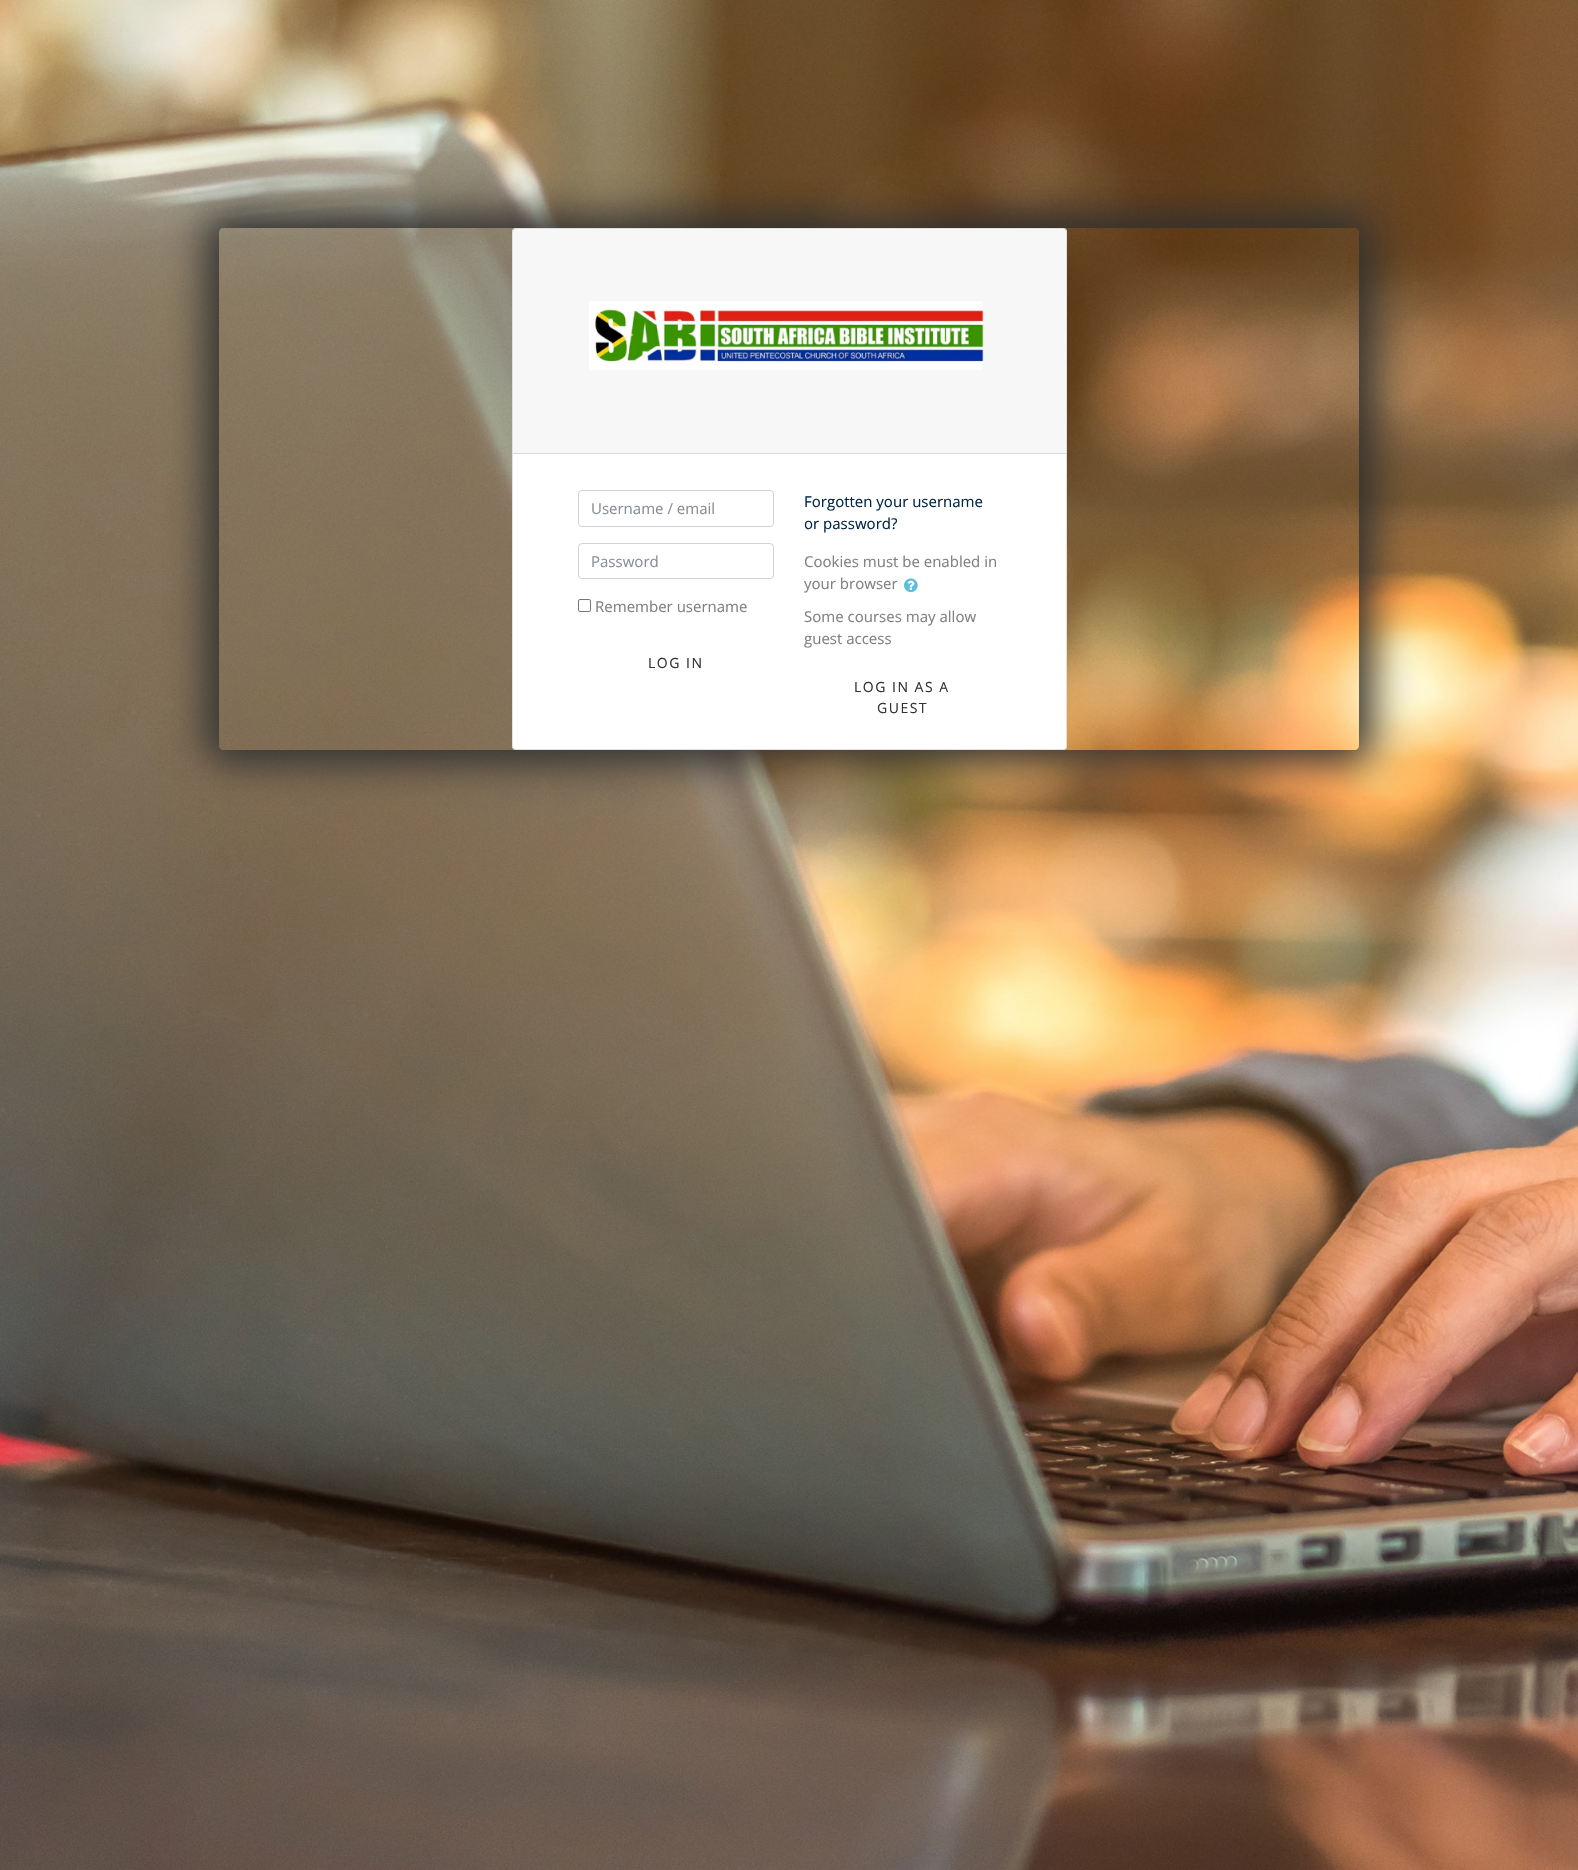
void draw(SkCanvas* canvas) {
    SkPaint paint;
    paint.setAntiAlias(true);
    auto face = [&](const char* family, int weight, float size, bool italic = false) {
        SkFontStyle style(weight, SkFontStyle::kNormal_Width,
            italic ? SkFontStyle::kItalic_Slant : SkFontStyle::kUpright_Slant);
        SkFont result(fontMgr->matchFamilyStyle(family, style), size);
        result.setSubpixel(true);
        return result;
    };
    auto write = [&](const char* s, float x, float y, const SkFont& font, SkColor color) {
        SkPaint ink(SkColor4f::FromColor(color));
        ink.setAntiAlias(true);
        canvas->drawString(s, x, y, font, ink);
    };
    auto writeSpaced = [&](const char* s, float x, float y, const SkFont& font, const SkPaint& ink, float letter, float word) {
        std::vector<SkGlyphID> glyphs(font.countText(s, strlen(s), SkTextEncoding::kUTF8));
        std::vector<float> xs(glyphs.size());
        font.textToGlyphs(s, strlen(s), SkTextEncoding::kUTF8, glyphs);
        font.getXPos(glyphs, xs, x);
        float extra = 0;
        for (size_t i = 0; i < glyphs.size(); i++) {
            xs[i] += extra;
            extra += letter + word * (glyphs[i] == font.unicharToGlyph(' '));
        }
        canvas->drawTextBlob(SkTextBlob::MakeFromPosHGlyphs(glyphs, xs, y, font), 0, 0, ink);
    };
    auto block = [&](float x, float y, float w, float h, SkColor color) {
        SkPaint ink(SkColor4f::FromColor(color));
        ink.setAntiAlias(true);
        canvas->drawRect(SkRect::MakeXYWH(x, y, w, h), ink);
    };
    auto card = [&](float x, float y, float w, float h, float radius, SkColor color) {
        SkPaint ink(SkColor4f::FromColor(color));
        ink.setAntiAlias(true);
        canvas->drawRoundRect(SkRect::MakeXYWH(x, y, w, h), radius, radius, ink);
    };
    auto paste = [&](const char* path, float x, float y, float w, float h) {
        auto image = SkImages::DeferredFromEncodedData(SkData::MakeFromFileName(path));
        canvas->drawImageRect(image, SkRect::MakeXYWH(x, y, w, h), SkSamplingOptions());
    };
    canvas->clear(SK_ColorWHITE);
    paste("pic1.png", 0, 0, 1578, 1870);
    canvas->save();
    canvas->clipPath(SkPathBuilder(SkPathFillType::kEvenOdd).moveTo(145, 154).lineTo(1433, 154).lineTo(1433, 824).lineTo(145, 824).close().moveTo(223, 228).lineTo(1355, 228).cubicTo(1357, 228, 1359, 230, 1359, 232).lineTo(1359, 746).cubicTo(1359, 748, 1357, 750, 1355, 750).lineTo(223, 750).cubicTo(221, 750, 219, 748, 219, 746).lineTo(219, 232).cubicTo(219, 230, 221, 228, 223, 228).close().detach(), true);
    paint.setColor(SkColorSetRGB(47, 47, 47));
    paint.setMaskFilter(SkMaskFilter::MakeBlur(kNormal_SkBlurStyle, 20));
    canvas->drawRoundRect(SkRect::MakeXYWH(206, 215, 1166, 548), 17, 17, paint);
    paint.setMaskFilter(nullptr);
    canvas->restore();
    card(512, 228, 555, 522, 4, SK_ColorWHITE);
    paint.setStyle(SkPaint::kStroke_Style);
    paint.setStrokeWidth(1);
    paint.setColor(SkColorSetARGB(31, 0, 0, 0));
    canvas->drawRoundRect(SkRect::MakeXYWH(512.5f, 228.5f, 554, 521), 3.5f, 3.5f, paint);
    block(513, 229, 553, 224, SkColorSetARGB(8, 0, 0, 0));
    block(513, 453, 553, 1, SkColorSetRGB(216, 216, 216));
    paste("pic2.png", 589, 301, 395, 69);
    paint.setColor(SkColorSetRGB(206, 212, 218));
    canvas->drawRoundRect(SkRect::MakeXYWH(578.5f, 490.5f, 195, 36), 3.5f, 3.5f, paint);
    auto kFont1 = face("Open Sans", 400, 15);
    write("Username / email", 591, 514, kFont1, SkColorSetRGB(134, 142, 150));
    canvas->drawRoundRect(SkRect::MakeXYWH(578.5f, 543.5f, 195, 35), 3.5f, 3.5f, paint);
    write("Password", 591, 567, kFont1, SkColorSetRGB(134, 142, 150));
    paint.setColor(SkColorSetRGB(118, 118, 118));
    canvas->drawRoundRect(SkRect::MakeXYWH(578.5f, 599.5f, 12, 12), 1.5f, 1.5f, paint);
    write("Remember username", 595, 612, kFont1, SkColorSetRGB(128, 128, 128));
    auto kFont2 = face("Open Sans", 400, 14);
    paint.setStyle(SkPaint::kFill_Style);
    paint.setColor(SkColorSetRGB(51, 51, 51));
    writeSpaced("LOG IN", 648, 668, kFont2, paint, 1.5f, 0);
    write("Forgotten your username", 804, 507, kFont1, SkColorSetRGB(0, 38, 71));
    write("or password?", 804, 529, kFont1, SkColorSetRGB(0, 38, 71));
    write("Cookies must be enabled in", 804, 567, kFont1, SkColorSetRGB(128, 128, 128));
    write("your browser", 804, 589, kFont1, SkColorSetRGB(128, 128, 128));
    paste("pic3.png", 904, 578, 14, 15);
    write("Some courses may allow", 804, 622, kFont1, SkColorSetRGB(128, 128, 128));
    write("guest access", 804, 644, kFont1, SkColorSetRGB(128, 128, 128));
    writeSpaced("LOG IN AS A", 854, 692, kFont2, paint, 1.5f, 0);
    writeSpaced("GUEST", 877, 713, kFont2, paint, 1.5f, 0);
}
